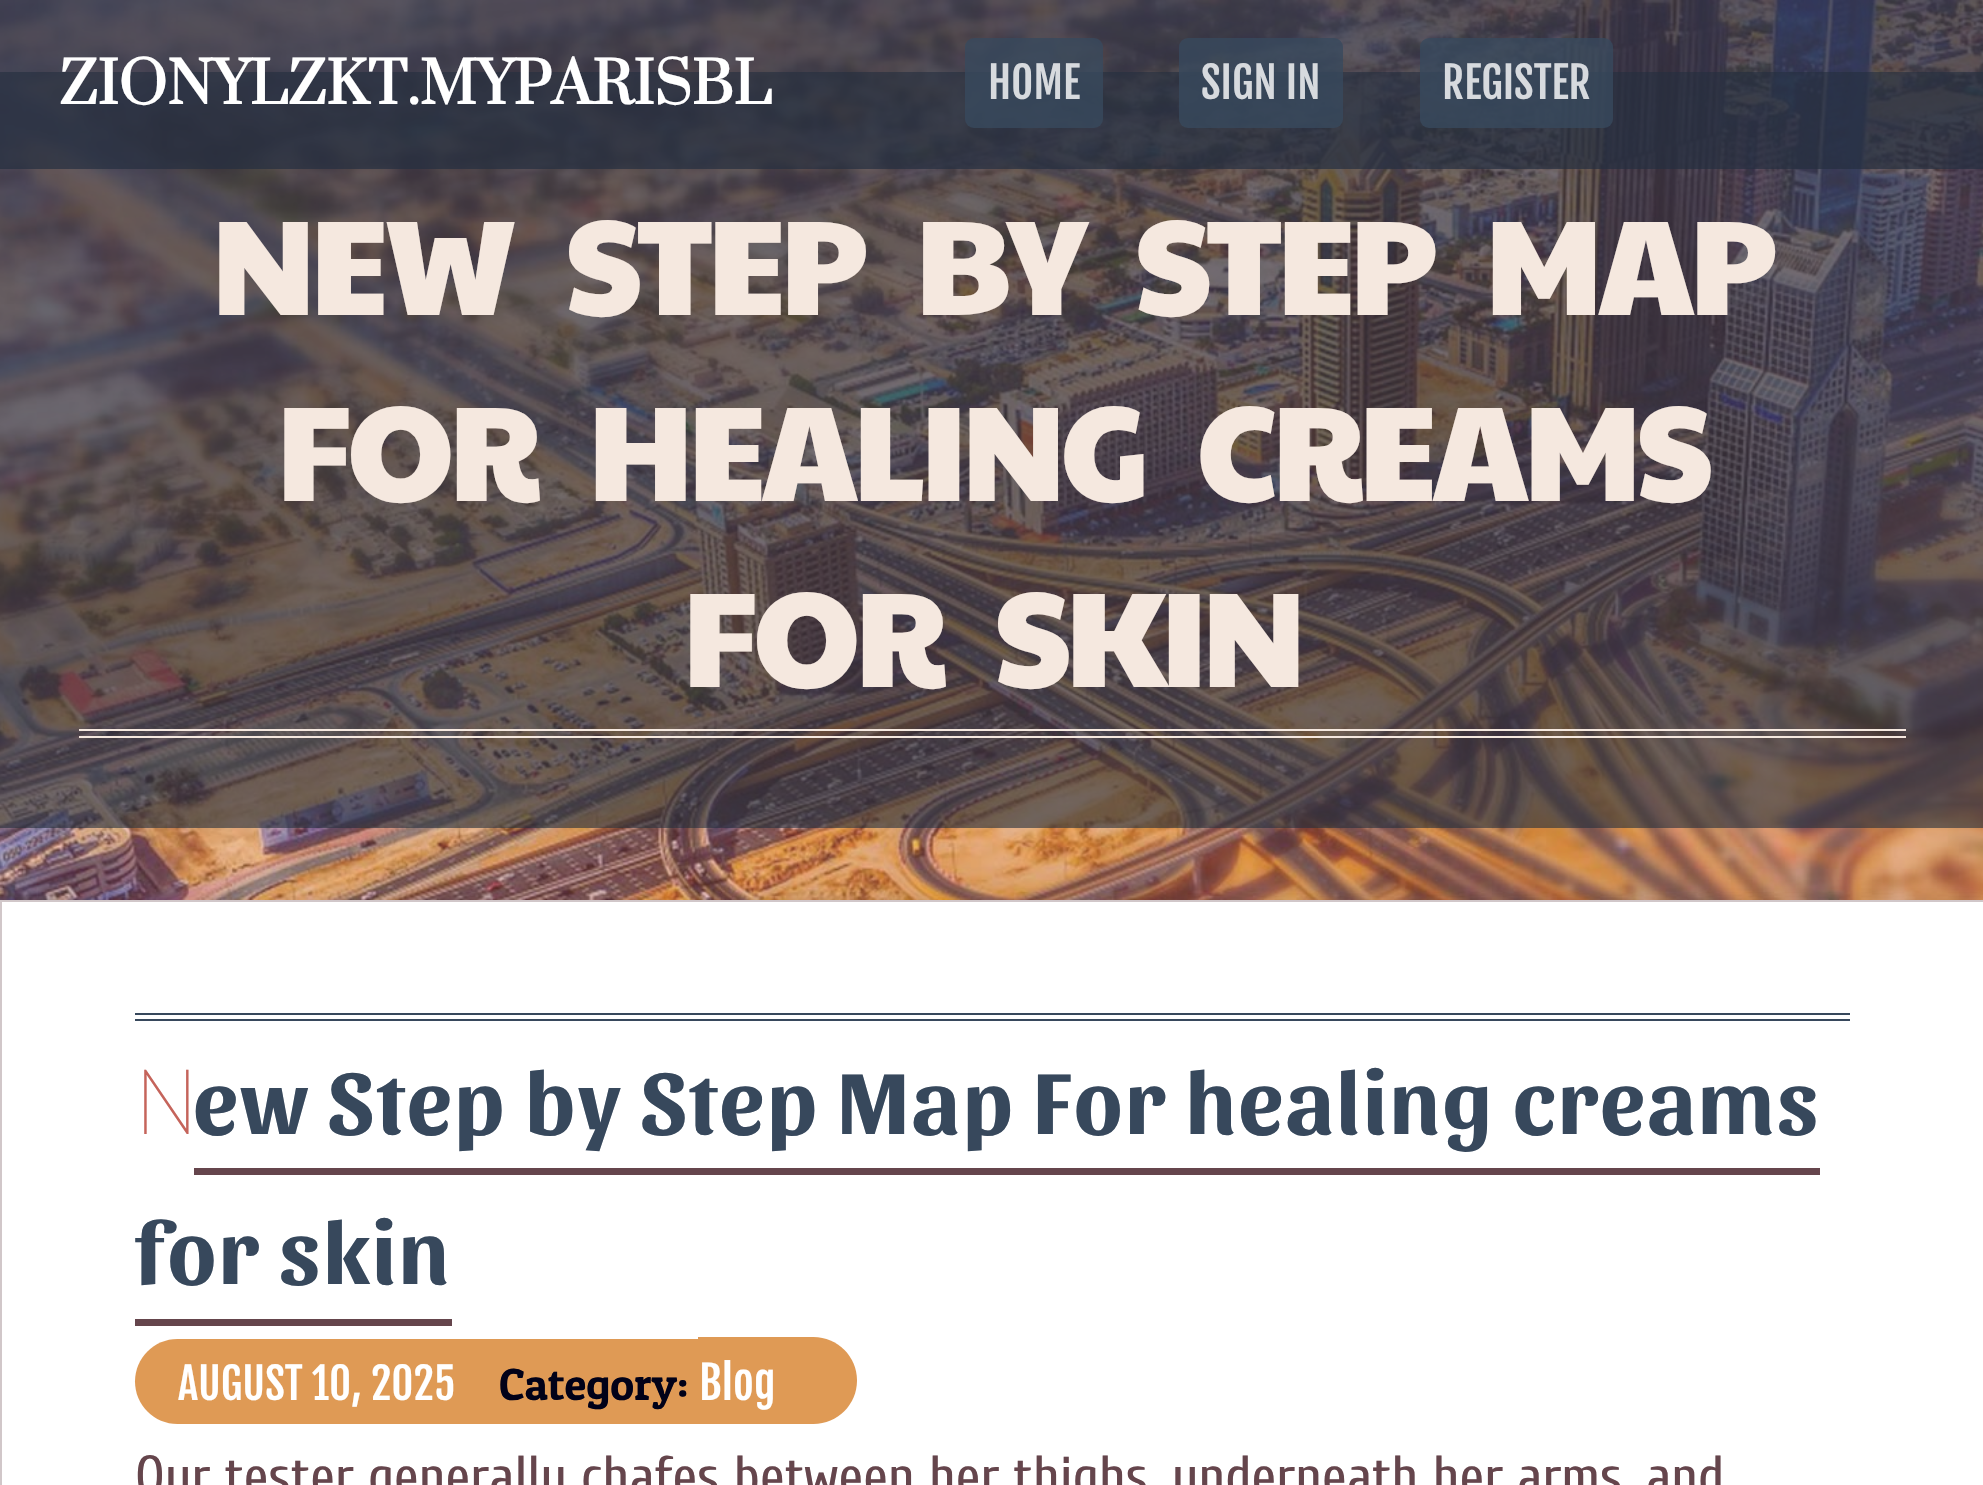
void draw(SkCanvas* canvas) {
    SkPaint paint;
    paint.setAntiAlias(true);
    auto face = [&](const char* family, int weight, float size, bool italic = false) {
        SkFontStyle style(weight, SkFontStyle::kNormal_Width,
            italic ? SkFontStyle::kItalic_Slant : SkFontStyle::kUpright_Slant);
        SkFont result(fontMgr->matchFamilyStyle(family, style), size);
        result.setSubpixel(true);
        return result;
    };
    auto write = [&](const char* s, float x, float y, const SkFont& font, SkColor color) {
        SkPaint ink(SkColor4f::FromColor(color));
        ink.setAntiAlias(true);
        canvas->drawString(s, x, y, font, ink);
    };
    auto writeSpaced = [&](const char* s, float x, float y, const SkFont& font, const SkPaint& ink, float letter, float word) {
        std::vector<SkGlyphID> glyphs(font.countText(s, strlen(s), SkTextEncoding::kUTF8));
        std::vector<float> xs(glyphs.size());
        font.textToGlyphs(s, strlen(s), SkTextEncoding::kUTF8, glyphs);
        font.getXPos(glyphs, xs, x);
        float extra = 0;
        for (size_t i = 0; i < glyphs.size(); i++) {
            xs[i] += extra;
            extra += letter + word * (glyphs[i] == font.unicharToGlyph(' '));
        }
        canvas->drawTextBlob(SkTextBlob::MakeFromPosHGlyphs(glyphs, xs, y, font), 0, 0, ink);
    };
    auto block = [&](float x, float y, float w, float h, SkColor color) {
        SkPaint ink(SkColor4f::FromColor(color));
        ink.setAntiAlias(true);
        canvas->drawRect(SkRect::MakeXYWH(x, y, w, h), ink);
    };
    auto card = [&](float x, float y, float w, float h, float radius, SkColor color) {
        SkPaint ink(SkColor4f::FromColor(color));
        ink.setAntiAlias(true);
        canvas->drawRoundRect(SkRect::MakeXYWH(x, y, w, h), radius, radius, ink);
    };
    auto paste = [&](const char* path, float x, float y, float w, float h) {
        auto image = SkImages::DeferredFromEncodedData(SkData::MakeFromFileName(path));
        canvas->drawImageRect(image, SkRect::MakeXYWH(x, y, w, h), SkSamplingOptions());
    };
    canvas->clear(SK_ColorWHITE);
    paste("pic1.png", 0, 0, 1983, 900);
    block(0, 72, 1983, 756, SkColorSetARGB(153, 34, 45, 58));
    block(0, 0, 1983, 169, SkColorSetARGB(179, 35, 46, 63));
    auto kFont1 = face("Prata", 700, 56.25f);
    write("ZIONYLZKT.MYPARISBL", 59, 104, kFont1, SK_ColorWHITE);
    card(965, 38, 138, 90, 9, SkColorSetARGB(204, 55, 72, 92));
    auto kFont2 = face("Fjalla One", 400, 42.75f);
    write("HOME", 988, 99, kFont2, SkColorSetRGB(215, 218, 222));
    card(1179, 38, 164, 90, 9, SkColorSetARGB(204, 55, 72, 92));
    write("SIGN IN", 1201, 99, kFont2, SkColorSetRGB(215, 218, 222));
    card(1420, 38, 193, 90, 9, SkColorSetARGB(204, 55, 72, 92));
    write("REGISTER", 1442, 99, kFont2, SkColorSetRGB(215, 218, 222));
    block(79, 729, 1827, 2, SkColorSetRGB(245, 232, 223));
    block(79, 736, 1827, 2, SkColorSetRGB(245, 232, 223));
    auto kFont3 = face("Paytone One", 400, 135);
    paint.setColor(SkColorSetRGB(245, 232, 223));
    writeSpaced("NEW STEP BY STEP MAP", 212, 315, kFont3, paint, -4.5f, 31.5f);
    writeSpaced("FOR HEALING CREAMS", 277, 501, kFont3, paint, -4.5f, 31.5f);
    writeSpaced("FOR SKIN", 683, 687, kFont3, paint, -4.5f, 31.5f);
    paint.setColor(SkColorSetARGB(26, 0, 0, 0));
    paint.setMaskFilter(SkMaskFilter::MakeBlur(kNormal_SkBlurStyle, 11));
    canvas->drawRect(SkRect::MakeXYWH(0, 900, 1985, 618), paint);
    paint.setMaskFilter(nullptr);
    paint.setColor(SK_ColorWHITE);
    canvas->drawRect(SkRect::MakeXYWH(1, 901, 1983, 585), paint);
    paint.setStyle(SkPaint::kStroke_Style);
    paint.setStrokeWidth(2);
    paint.setColor(SkColorSetRGB(209, 199, 201));
    canvas->drawRect(SkRect::MakeXYWH(1, 901, 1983, 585), paint);
    block(135, 1013, 1715, 2, SkColorSetRGB(55, 72, 92));
    block(135, 1019, 1715, 2, SkColorSetRGB(55, 72, 92));
    auto kFont4 = face("Noto Sans", 100, 90);
    paint.setStyle(SkPaint::kFill_Style);
    paint.setColor(SkColorSetRGB(197, 100, 91));
    writeSpaced("N", 135, 1134, kFont4, paint, 2.25f, 0);
    auto kFont5 = face("Sansita", 700, 90);
    paint.setColor(SkColorSetRGB(55, 72, 92));
    writeSpaced("ew Step by Step Map For healing creams", 193, 1134, kFont5, paint, 2.25f, 0);
    block(194, 1168, 1626, 7, SkColorSetRGB(101, 69, 76));
    writeSpaced("for skin", 135, 1284, kFont5, paint, 2.25f, 0);
    block(135, 1319, 317, 7, SkColorSetRGB(101, 69, 76));
    paint.setColor(SkColorSetRGB(223, 154, 85));
    canvas->drawPath(SkPathBuilder().moveTo(177.5f, 1339).lineTo(457, 1339).lineTo(457, 1424).lineTo(177.5f, 1424).cubicTo(154, 1424, 135, 1405, 135, 1381.5f).cubicTo(135, 1358, 154, 1339, 177.5f, 1339).close().detach(), paint);
    write("AUGUST 10, 2025", 178, 1400, kFont2, SK_ColorWHITE);
    block(457, 1339, 241, 85, SkColorSetRGB(223, 154, 85));
    auto kFont6 = face("Patua One", 400, 45);
    write("Category:", 499, 1400, kFont6, SkColorSetRGB(1, 1, 24));
    canvas->drawPath(SkPathBuilder().moveTo(698, 1337).lineTo(813.5f, 1337).cubicTo(837.5f, 1337, 857, 1356.5f, 857, 1380.5f).cubicTo(857, 1404.5f, 837.5f, 1424, 813.5f, 1424).lineTo(698, 1424).close().detach(), paint);
    auto kFont7 = face("Fjalla One", 400, 45);
    write("Blog", 699, 1400, kFont7, SK_ColorWHITE);
    auto kFont8 = face("Cuprum", 400, 56.25f);
    write("Our tester generally chafes between her thighs, underneath her arms, and", 135, 1495, kFont8, SkColorSetRGB(101, 69, 76));
}
